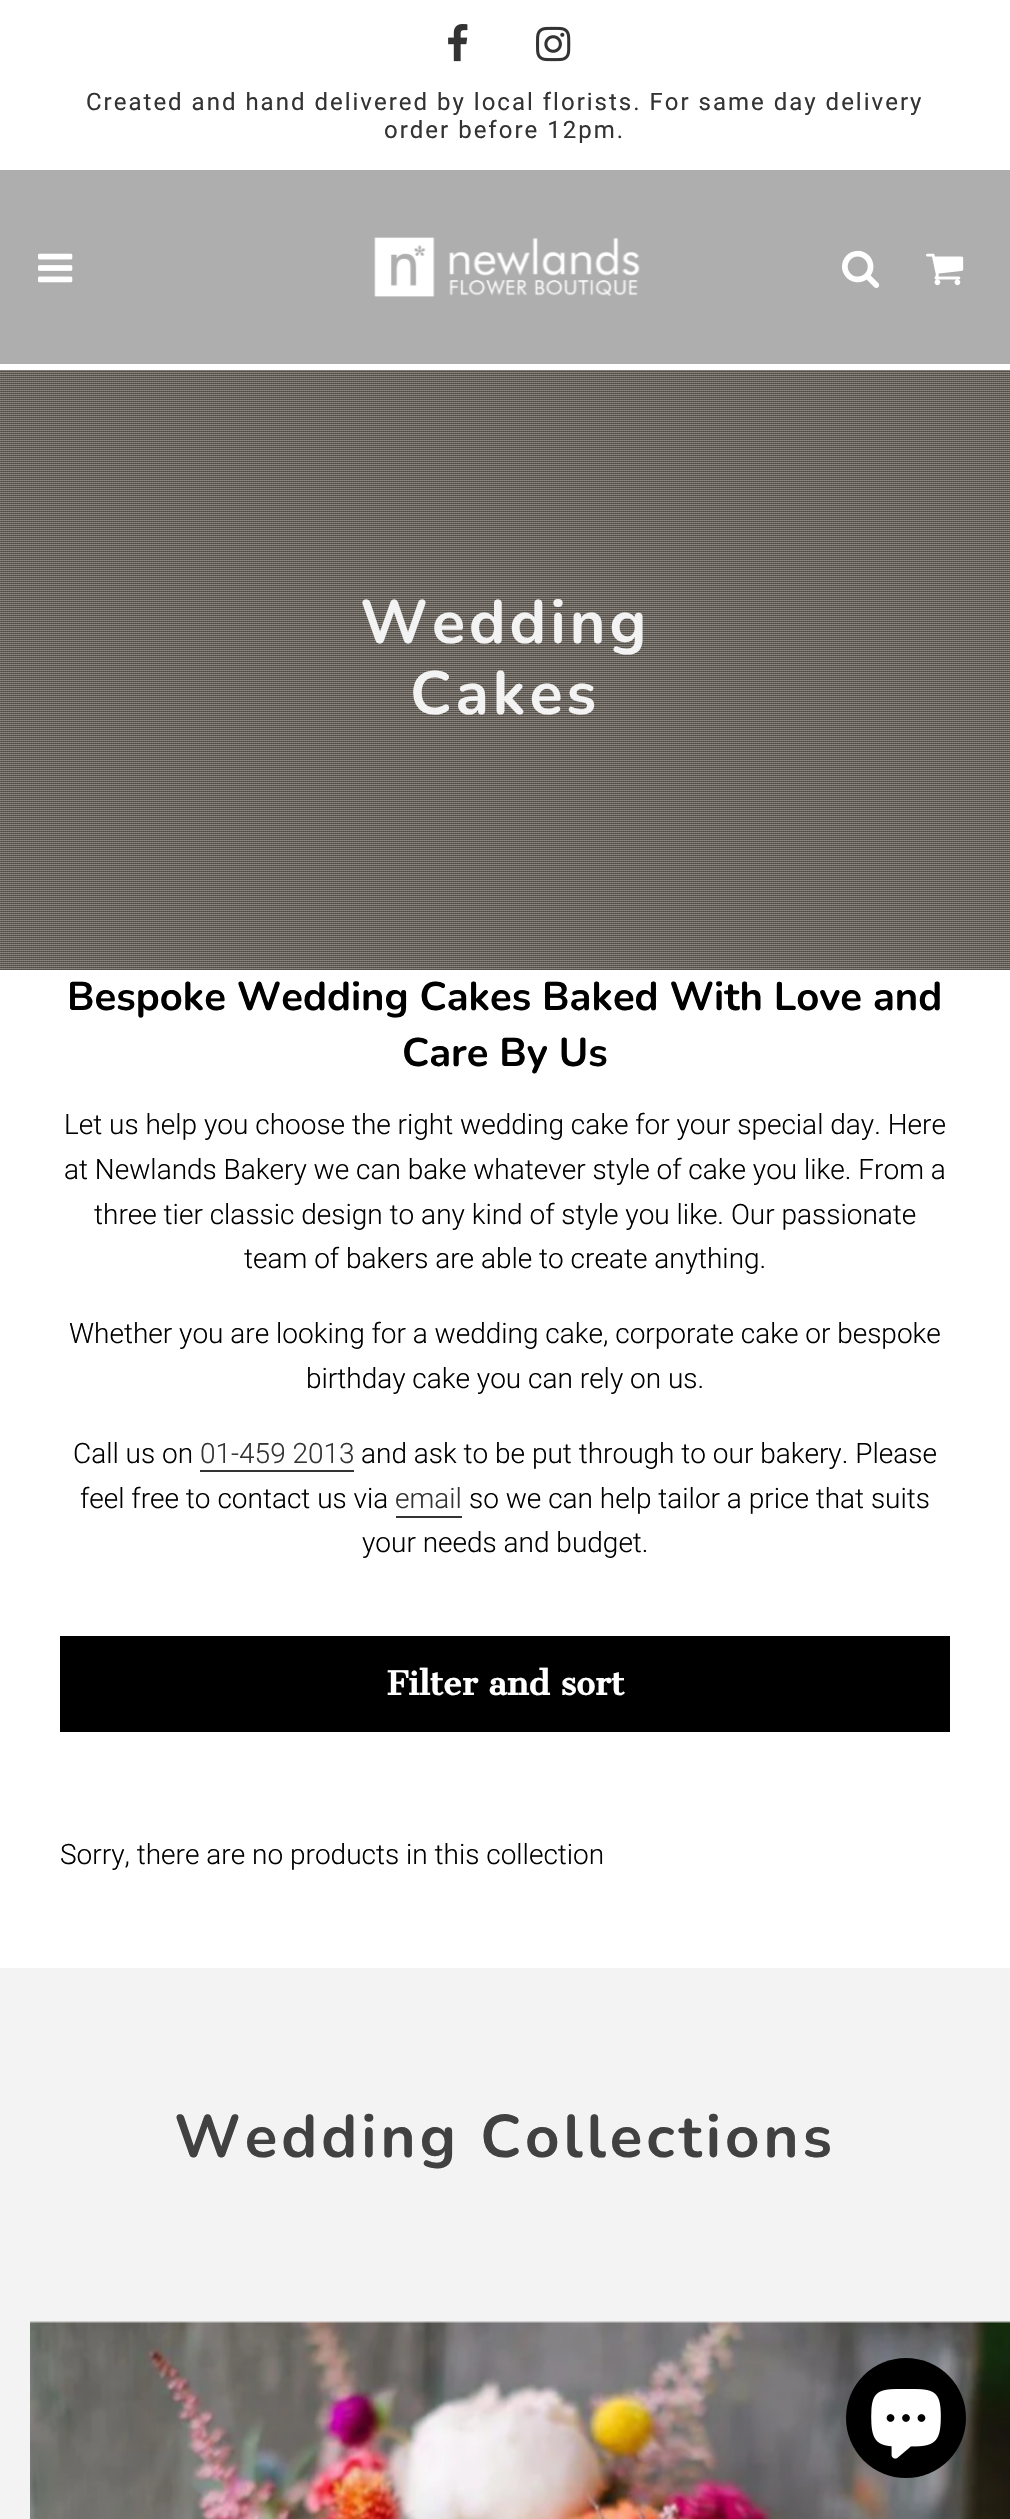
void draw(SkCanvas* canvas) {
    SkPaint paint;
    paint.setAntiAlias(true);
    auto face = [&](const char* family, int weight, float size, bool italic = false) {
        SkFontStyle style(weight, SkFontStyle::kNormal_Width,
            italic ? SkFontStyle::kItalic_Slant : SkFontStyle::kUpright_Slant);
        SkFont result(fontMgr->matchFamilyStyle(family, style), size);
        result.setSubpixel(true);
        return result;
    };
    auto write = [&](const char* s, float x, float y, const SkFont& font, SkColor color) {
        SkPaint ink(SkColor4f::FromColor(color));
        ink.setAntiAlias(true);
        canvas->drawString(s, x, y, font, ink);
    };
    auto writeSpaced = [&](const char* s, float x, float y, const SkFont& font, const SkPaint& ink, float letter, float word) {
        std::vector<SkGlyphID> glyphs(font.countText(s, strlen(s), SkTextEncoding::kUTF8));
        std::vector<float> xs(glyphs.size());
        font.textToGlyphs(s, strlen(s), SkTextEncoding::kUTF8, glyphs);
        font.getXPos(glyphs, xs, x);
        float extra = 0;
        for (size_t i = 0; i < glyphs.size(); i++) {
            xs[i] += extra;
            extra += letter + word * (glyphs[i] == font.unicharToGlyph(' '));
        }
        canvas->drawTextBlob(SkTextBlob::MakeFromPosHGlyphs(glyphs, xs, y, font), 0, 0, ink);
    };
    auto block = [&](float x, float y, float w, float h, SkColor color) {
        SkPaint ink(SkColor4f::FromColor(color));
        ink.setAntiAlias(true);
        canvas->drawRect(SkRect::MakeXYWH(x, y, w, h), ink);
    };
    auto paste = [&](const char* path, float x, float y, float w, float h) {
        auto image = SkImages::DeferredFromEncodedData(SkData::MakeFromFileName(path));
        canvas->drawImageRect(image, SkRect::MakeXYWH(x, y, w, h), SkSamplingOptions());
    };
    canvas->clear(SK_ColorWHITE);
    paste("pic1.png", 448, 24, 20, 38);
    paste("pic2.png", 536, 26, 35, 36);
    auto kFont1 = face("Roboto", 400, 24);
    paint.setColor(SkColorSetRGB(51, 51, 51));
    writeSpaced("Created and hand delivered by local florists. For same day delivery", 86, 110, kFont1, paint, 2, 0);
    writeSpaced("order before 12pm.", 384, 138, kFont1, paint, 2, 0);
    block(0, 170, 1010, 194, SkColorSetRGB(174, 174, 174));
    paste("pic3.png", 38, 253, 35, 30);
    paste("pic4.png", 374, 237, 266, 60);
    paste("pic5.png", 842, 250, 38, 38);
    paste("pic6.png", 926, 253, 38, 33);
    paste("pic7.png", 0, 370, 1010, 600);
    auto kFont2 = face("Nunito", 700, 61);
    paint.setColor(SkColorSetRGB(243, 243, 243));
    writeSpaced("Wedding", 360, 643, kFont2, paint, 4, 0);
    writeSpaced("Cakes", 410, 714, kFont2, paint, 4, 0);
    auto kFont3 = face("Nunito", 700, 40);
    write("Bespoke Wedding Cakes Baked With Love and", 67, 1010, kFont3, SK_ColorBLACK);
    write("Care By Us", 402, 1066, kFont3, SK_ColorBLACK);
    auto kFont4 = face("Roboto", 300, 28);
    write("Let us help you choose the right wedding cake for your special day. Here", 64, 1134, kFont4, SK_ColorBLACK);
    write("at Newlands Bakery we can bake whatever style of cake you like. From a", 64, 1179, kFont4, SK_ColorBLACK);
    write("three tier classic design to any kind of style you like. Our passionate", 94, 1224, kFont4, SK_ColorBLACK);
    write("team of bakers are able to create anything.", 244, 1268, kFont4, SK_ColorBLACK);
    write("Whether you are looking for a wedding cake, corporate cake or bespoke", 69, 1343, kFont4, SK_ColorBLACK);
    write("birthday cake you can rely on us.", 306, 1388, kFont4, SK_ColorBLACK);
    write("Call us on", 73, 1463, kFont4, SK_ColorBLACK);
    write("01-459 2013", 200, 1463, kFont4, SkColorSetRGB(51, 51, 51));
    block(200, 1470, 154, 2, SkColorSetRGB(51, 51, 51));
    write("and ask to be put through to our bakery. Please", 361, 1463, kFont4, SK_ColorBLACK);
    write("feel free to contact us via", 80, 1508, kFont4, SK_ColorBLACK);
    write("email", 395, 1508, kFont4, SkColorSetRGB(51, 51, 51));
    block(396, 1516, 66, 2, SkColorSetRGB(51, 51, 51));
    write("so we can help tailor a price that suits", 469, 1508, kFont4, SK_ColorBLACK);
    write("your needs and budget.", 362, 1552, kFont4, SK_ColorBLACK);
    block(60, 1636, 890, 96, SK_ColorBLACK);
    auto kFont5 = face("Cantata One", 700, 32);
    write("Filter and sort", 387, 1695, kFont5, SK_ColorWHITE);
    write("Sorry, there are no products in this collection", 60, 1864, kFont4, SK_ColorBLACK);
    block(0, 1968, 1010, 551, SkColorSetRGB(243, 243, 243));
    auto kFont6 = face("Nunito", 700, 60);
    paint.setColor(SkColorSetRGB(65, 65, 65));
    writeSpaced("Wedding Collections", 174, 2157, kFont6, paint, 4, 0);
    paste("pic8.png", 30, 2321, 980, 198);
    paint.setColor(SK_ColorBLACK);
    canvas->drawCircle(906, 2418, 60, paint);
    paste("pic9.png", 871, 2389, 70, 70);
}
